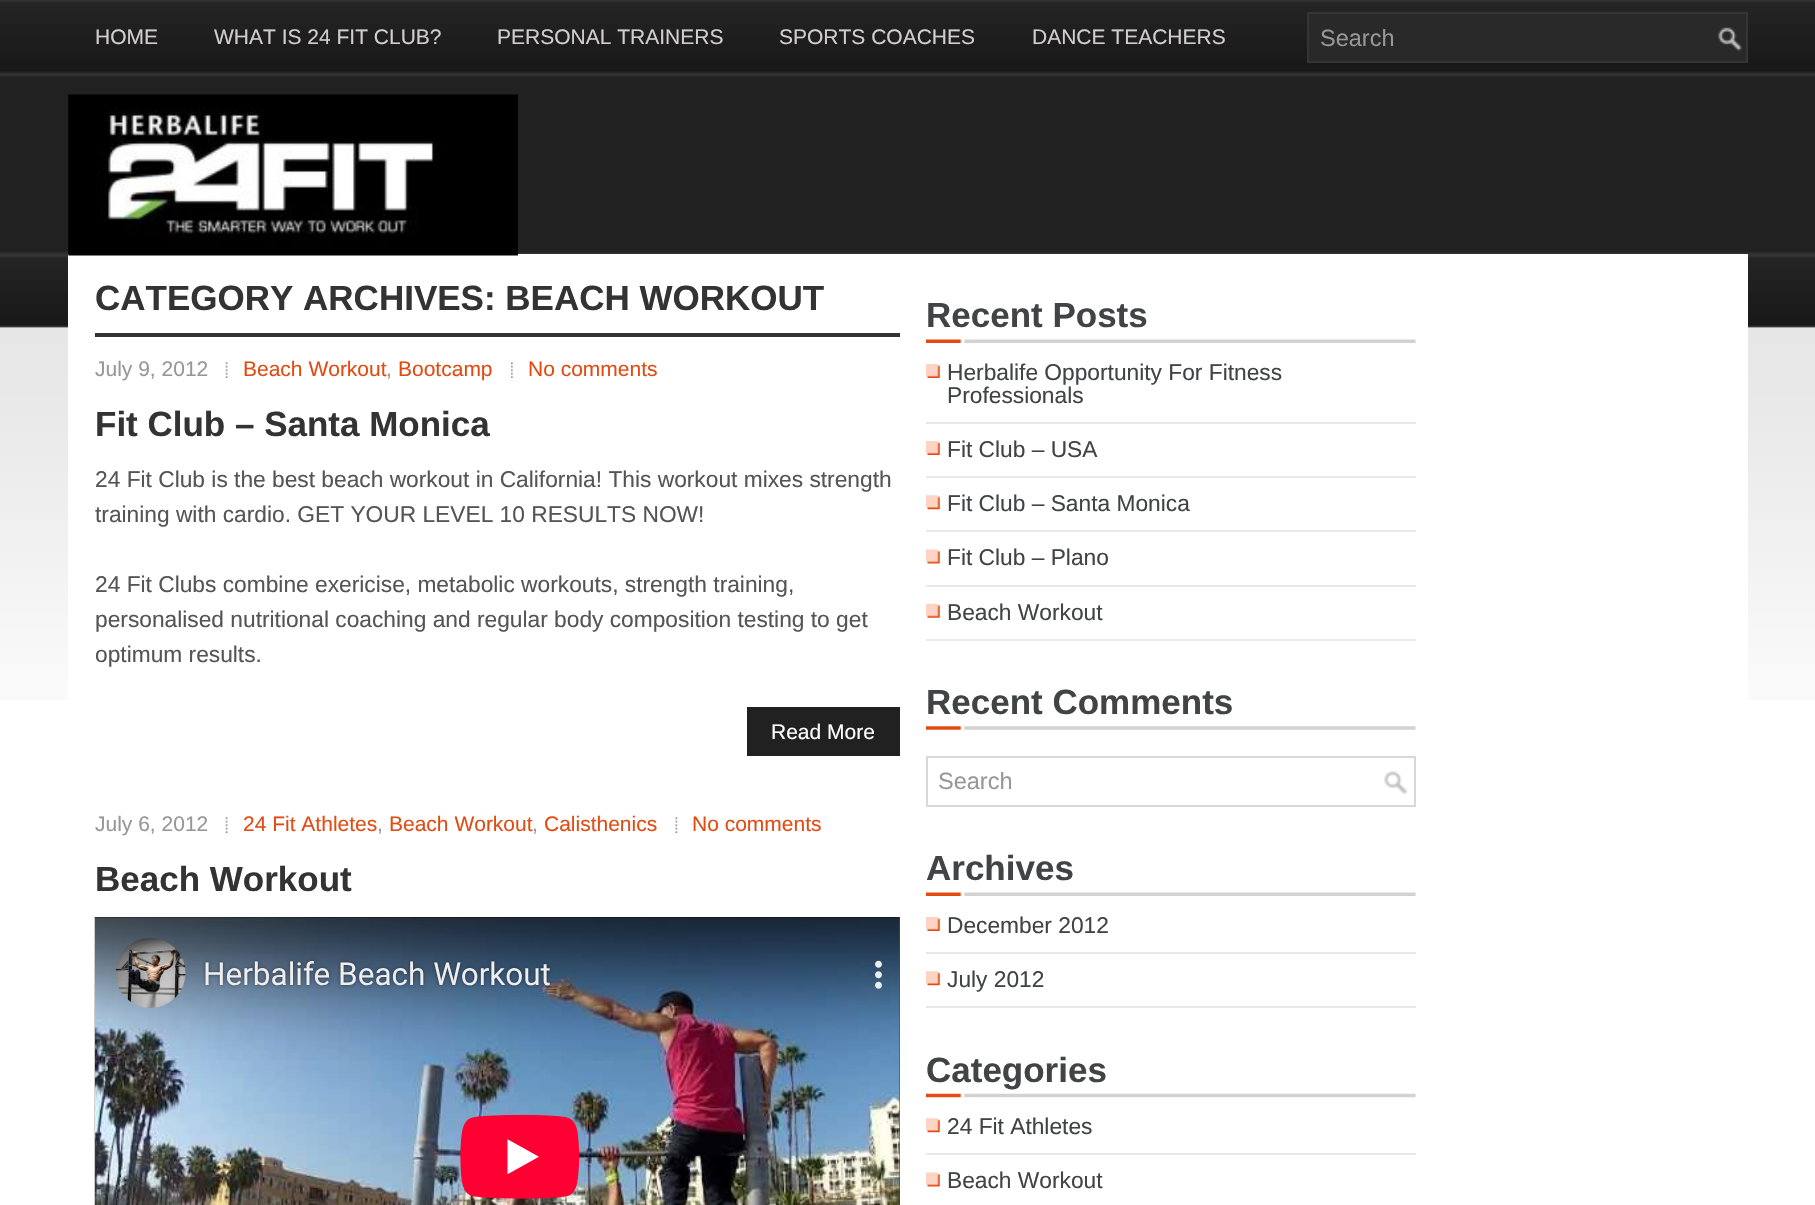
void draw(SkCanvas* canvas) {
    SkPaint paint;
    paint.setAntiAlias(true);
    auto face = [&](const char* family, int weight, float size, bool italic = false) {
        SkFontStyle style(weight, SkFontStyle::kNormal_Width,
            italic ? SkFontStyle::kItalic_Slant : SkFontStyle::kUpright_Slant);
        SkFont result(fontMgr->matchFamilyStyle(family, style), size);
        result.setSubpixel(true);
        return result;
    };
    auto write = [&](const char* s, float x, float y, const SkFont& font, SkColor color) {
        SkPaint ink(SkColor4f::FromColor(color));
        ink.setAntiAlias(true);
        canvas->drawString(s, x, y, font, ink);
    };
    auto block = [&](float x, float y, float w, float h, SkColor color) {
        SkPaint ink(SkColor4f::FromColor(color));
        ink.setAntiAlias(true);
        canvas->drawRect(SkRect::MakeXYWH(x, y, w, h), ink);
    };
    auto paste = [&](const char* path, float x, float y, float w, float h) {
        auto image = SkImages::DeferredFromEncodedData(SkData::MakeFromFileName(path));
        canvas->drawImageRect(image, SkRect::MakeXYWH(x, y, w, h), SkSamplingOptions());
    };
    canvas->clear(SK_ColorWHITE);
    paste("pic1.png", 0, 0, 1815, 700);
    auto kFont1 = face("Liberation Sans", 400, 21);
    write("HOME", 95, 44, kFont1, SkColorSetRGB(211, 206, 206));
    write("WHAT IS 24 FIT CLUB?", 214, 44, kFont1, SkColorSetRGB(211, 206, 206));
    write("PERSONAL TRAINERS", 497, 44, kFont1, SkColorSetRGB(211, 206, 206));
    write("SPORTS COACHES", 779, 44, kFont1, SkColorSetRGB(211, 206, 206));
    write("DANCE TEACHERS", 1032, 44, kFont1, SkColorSetRGB(211, 206, 206));
    block(1309, 14, 437, 47, SkColorSetRGB(41, 41, 41));
    paste("pic2.png", 1718, 27, 24, 25);
    paint.setStyle(SkPaint::kStroke_Style);
    paint.setStrokeWidth(2);
    paint.setColor(SkColorSetRGB(54, 53, 53));
    canvas->drawRect(SkRect::MakeXYWH(1308, 13, 439, 49), paint);
    auto kFont2 = face("Liberation Sans", 400, 23.5f);
    write("Search", 1320, 46, kFont2, SkColorSetRGB(151, 151, 151));
    block(68, 254, 1680, 446, SK_ColorWHITE);
    paste("pic3.png", 68, 94, 450, 162);
    block(95, 333, 805, 4, SkColorSetRGB(51, 51, 51));
    auto kFont3 = face("Liberation Sans", 700, 35);
    write("CATEGORY ARCHIVES: BEACH WORKOUT", 95, 310, kFont3, SkColorSetRGB(51, 51, 51));
    write("July 9, 2012", 95, 376, kFont1, SkColorSetRGB(151, 151, 151));
    paste("pic4.png", 225, 362, 3, 16);
    write("Beach Workout", 243, 376, kFont1, SkColorSetRGB(226, 75, 18));
    write(",", 386, 376, kFont1, SkColorSetRGB(151, 151, 151));
    write("Bootcamp", 398, 376, kFont1, SkColorSetRGB(226, 75, 18));
    paste("pic5.png", 511, 362, 2, 16);
    write("No comments", 528, 376, kFont1, SkColorSetRGB(226, 75, 18));
    write("Fit Club – Santa Monica", 95, 436, kFont3, SkColorSetRGB(51, 51, 51));
    auto kFont4 = face("Liberation Sans", 400, 22.75f);
    write("24 Fit Club is the best beach workout in California! This workout mixes strength", 95, 487, kFont4, SkColorSetRGB(85, 85, 85));
    write("training with cardio. GET YOUR LEVEL 10 RESULTS NOW!", 95, 522, kFont4, SkColorSetRGB(85, 85, 85));
    write("24 Fit Clubs combine exericise, metabolic workouts, strength training,", 95, 592, kFont4, SkColorSetRGB(85, 85, 85));
    write("personalised nutritional coaching and regular body composition testing to get", 95, 627, kFont4, SkColorSetRGB(85, 85, 85));
    write("optimum results.", 95, 662, kFont4, SkColorSetRGB(85, 85, 85));
    block(747, 707, 153, 49, SkColorSetRGB(33, 33, 33));
    write("Read More", 771, 739, kFont1, SK_ColorWHITE);
    write("July 6, 2012", 95, 831, kFont1, SkColorSetRGB(151, 151, 151));
    paste("pic4.png", 225, 817, 3, 16);
    write("24 Fit Athletes", 243, 831, kFont1, SkColorSetRGB(226, 75, 18));
    write(",", 377, 831, kFont1, SkColorSetRGB(151, 151, 151));
    write("Beach Workout", 389, 831, kFont1, SkColorSetRGB(226, 75, 18));
    write(",", 532, 831, kFont1, SkColorSetRGB(151, 151, 151));
    write("Calisthenics", 544, 831, kFont1, SkColorSetRGB(226, 75, 18));
    paste("pic6.png", 675, 817, 3, 16);
    write("No comments", 692, 831, kFont1, SkColorSetRGB(226, 75, 18));
    write("Beach Workout", 95, 891, kFont3, SkColorSetRGB(51, 51, 51));
    paste("pic7.png", 94, 917, 806, 288);
    paste("pic8.png", 925, 339, 491, 4);
    write("Recent Posts", 926, 327, kFont3, SkColorSetRGB(65, 68, 69));
    paste("pic9.png", 925, 364, 15, 14);
    block(926, 422, 490, 2, SkColorSetRGB(233, 233, 233));
    write("Herbalife Opportunity For Fitness", 947, 380, kFont4, SkColorSetRGB(65, 68, 69));
    write("Professionals", 947, 403, kFont4, SkColorSetRGB(65, 68, 69));
    paste("pic9.png", 925, 441, 15, 14);
    block(926, 476, 490, 2, SkColorSetRGB(233, 233, 233));
    write("Fit Club – USA", 947, 457, kFont4, SkColorSetRGB(65, 68, 69));
    paste("pic10.png", 925, 495, 15, 15);
    block(926, 530, 490, 2, SkColorSetRGB(233, 233, 233));
    write("Fit Club – Santa Monica", 947, 511, kFont4, SkColorSetRGB(65, 68, 69));
    paste("pic11.png", 925, 549, 15, 15);
    block(926, 585, 490, 2, SkColorSetRGB(233, 233, 233));
    write("Fit Club – Plano", 947, 565, kFont4, SkColorSetRGB(65, 68, 69));
    paste("pic12.png", 925, 603, 15, 15);
    block(926, 639, 490, 2, SkColorSetRGB(233, 233, 233));
    write("Beach Workout", 947, 620, kFont4, SkColorSetRGB(65, 68, 69));
    paste("pic13.png", 925, 726, 491, 4);
    write("Recent Comments", 926, 714, kFont3, SkColorSetRGB(65, 68, 69));
    paste("pic14.png", 1384, 771, 24, 24);
    paint.setColor(SkColorSetRGB(216, 216, 216));
    canvas->drawRect(SkRect::MakeXYWH(927, 757, 488, 49), paint);
    write("Search", 938, 789, kFont2, SkColorSetRGB(151, 151, 151));
    paste("pic8.png", 925, 892, 491, 4);
    write("Archives", 926, 880, kFont3, SkColorSetRGB(65, 68, 69));
    paste("pic9.png", 925, 917, 15, 14);
    block(926, 952, 490, 2, SkColorSetRGB(233, 233, 233));
    write("December 2012", 947, 933, kFont4, SkColorSetRGB(65, 68, 69));
    paste("pic10.png", 925, 971, 15, 15);
    block(926, 1006, 490, 2, SkColorSetRGB(233, 233, 233));
    write("July 2012", 947, 987, kFont4, SkColorSetRGB(65, 68, 69));
    paste("pic15.png", 925, 1093, 491, 5);
    write("Categories", 926, 1082, kFont3, SkColorSetRGB(65, 68, 69));
    paste("pic10.png", 925, 1118, 15, 15);
    block(926, 1153, 490, 2, SkColorSetRGB(233, 233, 233));
    write("24 Fit Athletes", 947, 1134, kFont4, SkColorSetRGB(65, 68, 69));
    paste("pic11.png", 925, 1172, 15, 15);
    write("Beach Workout", 947, 1188, kFont4, SkColorSetRGB(65, 68, 69));
}
